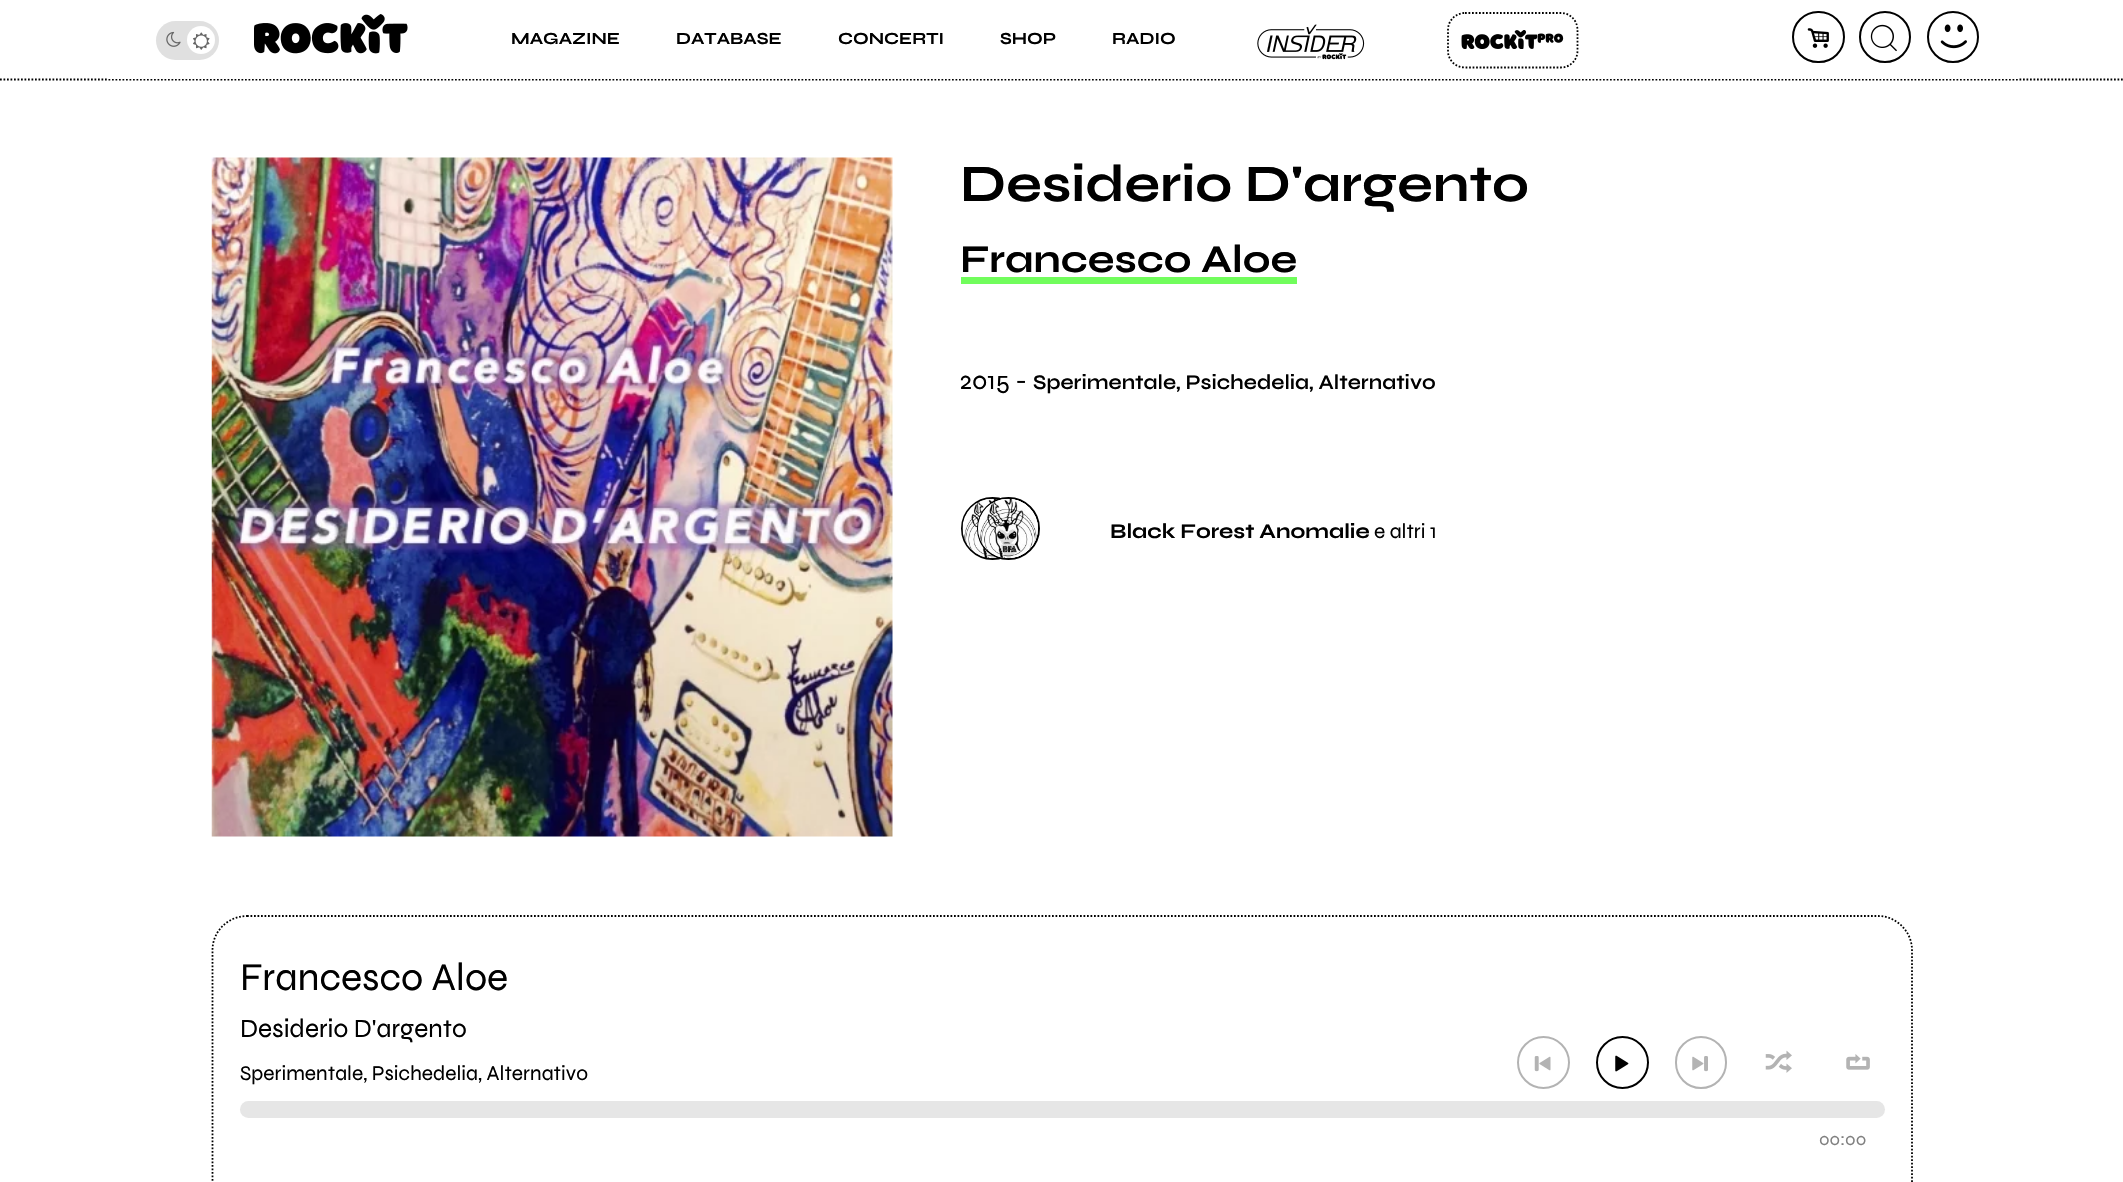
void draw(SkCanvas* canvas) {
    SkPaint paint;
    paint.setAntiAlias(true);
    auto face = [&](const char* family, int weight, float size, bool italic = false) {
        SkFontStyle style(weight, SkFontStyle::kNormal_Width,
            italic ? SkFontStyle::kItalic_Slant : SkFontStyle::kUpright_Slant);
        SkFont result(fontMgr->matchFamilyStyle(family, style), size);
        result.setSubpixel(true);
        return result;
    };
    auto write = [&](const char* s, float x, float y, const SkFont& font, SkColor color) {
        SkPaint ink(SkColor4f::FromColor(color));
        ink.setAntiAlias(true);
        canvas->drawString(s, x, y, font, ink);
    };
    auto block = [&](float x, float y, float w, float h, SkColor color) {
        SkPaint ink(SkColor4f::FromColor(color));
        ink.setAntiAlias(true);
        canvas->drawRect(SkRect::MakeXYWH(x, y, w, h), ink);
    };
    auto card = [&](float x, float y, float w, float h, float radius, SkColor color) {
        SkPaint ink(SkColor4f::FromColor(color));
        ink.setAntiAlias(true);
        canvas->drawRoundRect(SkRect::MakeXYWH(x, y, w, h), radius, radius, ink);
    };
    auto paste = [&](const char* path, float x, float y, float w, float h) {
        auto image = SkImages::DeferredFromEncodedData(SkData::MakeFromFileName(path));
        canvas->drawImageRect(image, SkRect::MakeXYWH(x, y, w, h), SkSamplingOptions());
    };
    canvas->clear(SK_ColorWHITE);
    paint.setStyle(SkPaint::kStroke_Style);
    paint.setStrokeWidth(1.8f);
    paint.setColor(SK_ColorBLACK);
    paint.setPathEffect(SkDashPathEffect::Make({{1.75f, 1.75f}}, 0));
    canvas->drawPath(SkPathBuilder().moveTo(0, 79.5f).lineTo(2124.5f, 79.5f).detach(), paint);
    paint.setPathEffect(nullptr);
    block(108, 78, 1910, 1, SK_ColorWHITE);
    paste("pic1.png", 254, 14, 154, 40);
    paint.setStrokeWidth(2);
    canvas->drawRoundRect(SkRect::MakeXYWH(1793, 12, 51, 50), 25, 25, paint);
    paste("pic2.png", 1807, 28, 22, 20);
    canvas->drawCircle(1885, 37, 25, paint);
    paste("pic3.png", 1870, 24, 27, 28);
    paste("pic4.png", 1940, 24, 27, 25);
    canvas->drawCircle(1953, 37, 25, paint);
    card(156, 21, 63, 39, 19.5f, SkColorSetRGB(224, 224, 224));
    paint.setStyle(SkPaint::kFill_Style);
    paint.setColor(SK_ColorWHITE);
    canvas->drawCircle(201, 40, 14, paint);
    paste("pic5.png", 166, 31, 15, 16);
    paste("pic6.png", 193, 32, 17, 18);
    auto kFont1 = face("Syne", 700, 17);
    write("MAGAZINE", 511, 44, kFont1, SK_ColorBLACK);
    write("DATABASE", 676, 44, kFont1, SK_ColorBLACK);
    write("CONCERTI", 838, 44, kFont1, SK_ColorBLACK);
    write("SHOP", 1000, 44, kFont1, SK_ColorBLACK);
    write("RADIO", 1112, 44, kFont1, SK_ColorBLACK);
    paste("pic7.png", 1257, 24, 108, 36);
    paste("pic8.png", 1461, 30, 103, 19);
    paint.setStyle(SkPaint::kStroke_Style);
    paint.setStrokeWidth(1.8f);
    paint.setColor(SK_ColorBLACK);
    paint.setPathEffect(SkDashPathEffect::Make({{1.75f, 1.75f}}, 0));
    canvas->drawPath(SkPathBuilder().moveTo(1465, 13).lineTo(1561, 13).cubicTo(1570, 13, 1577.5f, 20.5f, 1577.5f, 30).lineTo(1577.5f, 51).cubicTo(1577.5f, 60, 1570, 67.5f, 1561, 67.5f).lineTo(1465, 67.5f).cubicTo(1455.5f, 67.5f, 1448, 60, 1448, 51).lineTo(1448, 30).cubicTo(1448, 20.5f, 1455.5f, 13, 1465, 13).close().detach(), paint);
    paint.setPathEffect(nullptr);
    paste("pic9.png", 211, 157, 682, 680);
    auto kFont2 = face("Syne", 700, 52.5f);
    write("Desiderio D'argento", 960, 201, kFont2, SK_ColorBLACK);
    auto kFont3 = face("Syne", 700, 39.4f);
    write("Francesco Aloe", 960, 272, kFont3, SK_ColorBLACK);
    block(961, 277, 336, 7, SkColorSetRGB(113, 253, 92));
    auto kFont4 = face("Syne", 400, 26.25f);
    write("2015 -", 960, 389, kFont4, SK_ColorBLACK);
    auto kFont5 = face("Syne", 600, 21);
    write("Sperimentale, Psichedelia, Alternativo", 1033, 389, kFont5, SK_ColorBLACK);
    paint.setStrokeWidth(2);
    canvas->drawCircle(992.5f, 528.5f, 30.5f, paint);
    paste("pic10.png", 962, 498, 38, 61);
    canvas->drawCircle(1008.5f, 528.5f, 30.5f, paint);
    card(978, 499, 60, 59, 29.5f, SK_ColorWHITE);
    paste("pic11.png", 978, 498, 60, 61);
    auto kFont6 = face("Syne", 700, 21);
    write("Black Forest Anomalie", 1110, 538, kFont6, SK_ColorBLACK);
    auto kFont7 = face("Syne", 400, 21);
    write("e altri 1", 1374, 538, kFont7, SK_ColorBLACK);
    paint.setStrokeWidth(1.8f);
    paint.setPathEffect(SkDashPathEffect::Make({{1.75f, 1.75f}}, 0));
    canvas->drawPath(SkPathBuilder().moveTo(247, 916).lineTo(1878, 916).cubicTo(1896.5f, 916, 1912, 931.5f, 1912, 950).lineTo(1912, 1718.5f).cubicTo(1912, 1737.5f, 1896.5f, 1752.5f, 1878, 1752.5f).lineTo(247, 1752.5f).cubicTo(228, 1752.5f, 212.5f, 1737.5f, 212.5f, 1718.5f).lineTo(212.5f, 950).cubicTo(212.5f, 931.5f, 228, 916, 247, 916).close().detach(), paint);
    paint.setPathEffect(nullptr);
    auto kFont8 = face("Syne", 400, 39.4f);
    write("Francesco Aloe", 240, 990, kFont8, SK_ColorBLACK);
    write("Desiderio D'argento", 240, 1037, kFont4, SK_ColorBLACK);
    write("Sperimentale, Psichedelia, Alternativo", 240, 1080, kFont7, SK_ColorBLACK);
    paint.setStrokeWidth(2);
    paint.setColor(SkColorSetRGB(179, 179, 179));
    canvas->drawCircle(1543.5f, 1062.5f, 25.5f, paint);
    paste("pic12.png", 1534, 1056, 17, 16);
    paint.setColor(SK_ColorBLACK);
    canvas->drawCircle(1622.5f, 1062.5f, 25.5f, paint);
    paste("pic13.png", 1615, 1055, 14, 17);
    paint.setColor(SkColorSetRGB(179, 179, 179));
    canvas->drawRoundRect(SkRect::MakeXYWH(1676, 1037, 50, 51), 25, 25, paint);
    paste("pic14.png", 1692, 1056, 16, 16);
    paste("pic15.png", 1765, 1050, 27, 23);
    paste("pic16.png", 1846, 1054, 24, 16);
    card(240, 1101, 1645, 17, 8.5f, SkColorSetRGB(230, 230, 230));
    auto kFont9 = face("Syne", 400, 18);
    write("00:00", 1819, 1145, kFont9, SkColorSetRGB(128, 128, 128));
}
